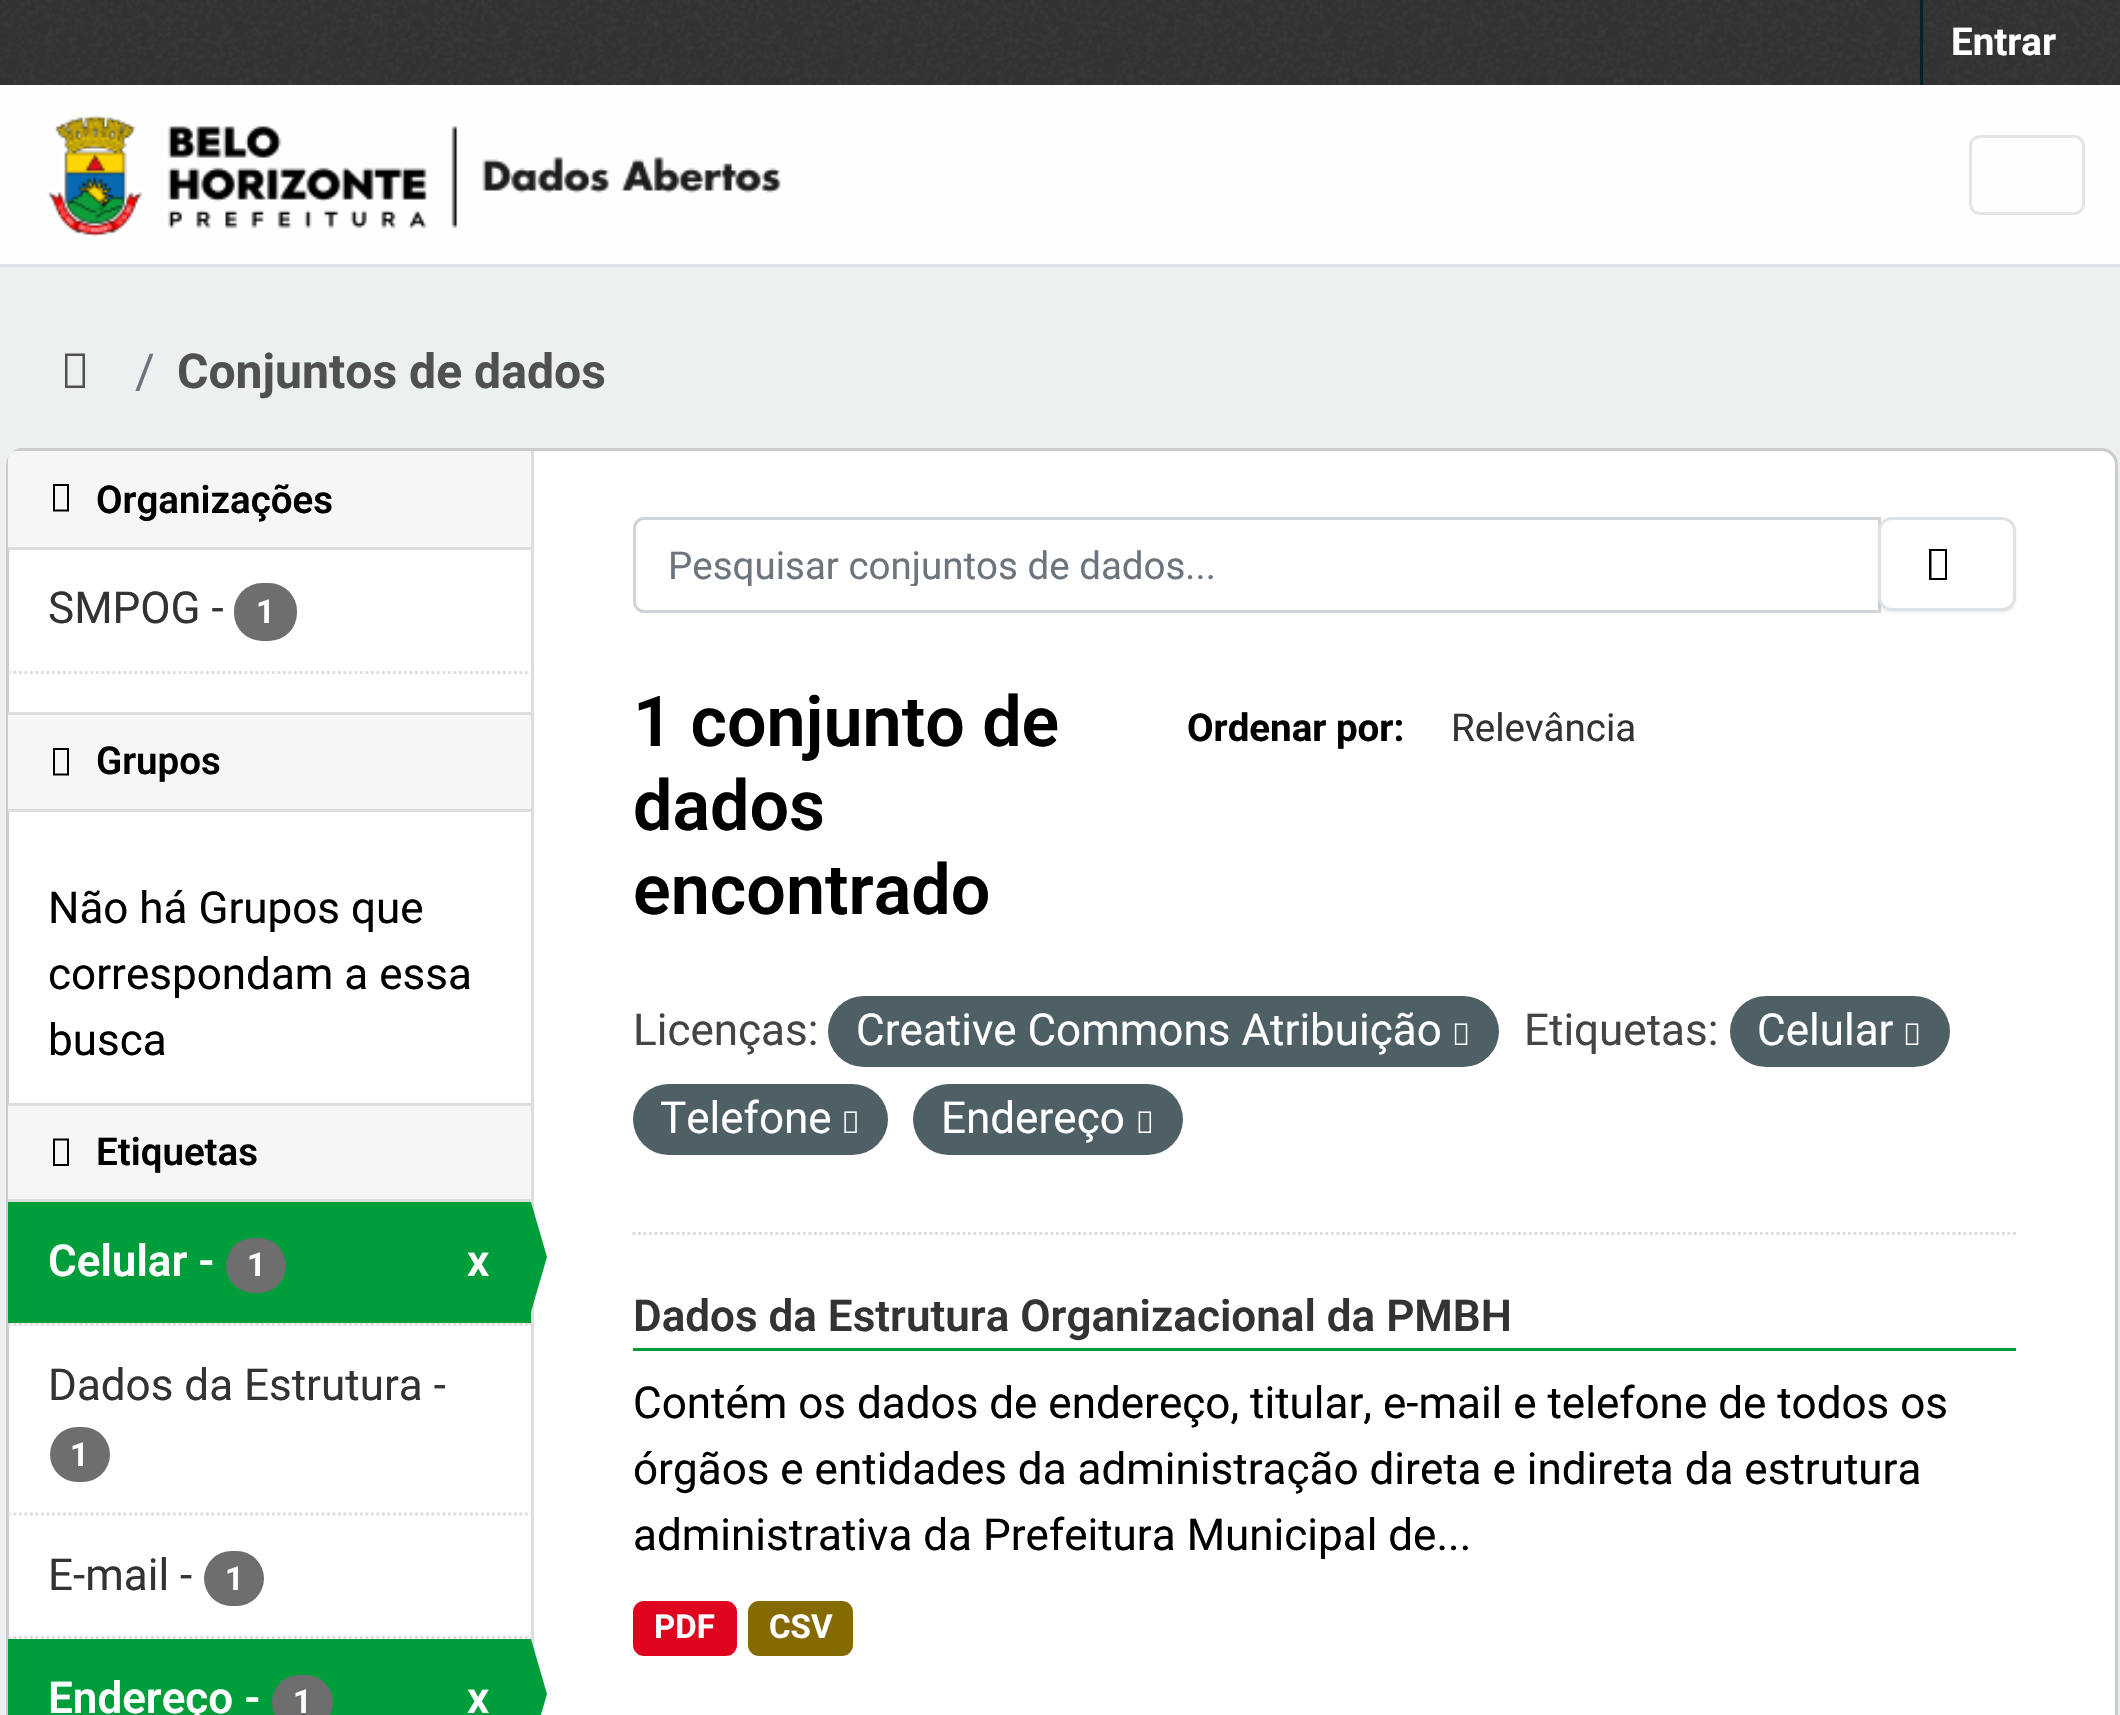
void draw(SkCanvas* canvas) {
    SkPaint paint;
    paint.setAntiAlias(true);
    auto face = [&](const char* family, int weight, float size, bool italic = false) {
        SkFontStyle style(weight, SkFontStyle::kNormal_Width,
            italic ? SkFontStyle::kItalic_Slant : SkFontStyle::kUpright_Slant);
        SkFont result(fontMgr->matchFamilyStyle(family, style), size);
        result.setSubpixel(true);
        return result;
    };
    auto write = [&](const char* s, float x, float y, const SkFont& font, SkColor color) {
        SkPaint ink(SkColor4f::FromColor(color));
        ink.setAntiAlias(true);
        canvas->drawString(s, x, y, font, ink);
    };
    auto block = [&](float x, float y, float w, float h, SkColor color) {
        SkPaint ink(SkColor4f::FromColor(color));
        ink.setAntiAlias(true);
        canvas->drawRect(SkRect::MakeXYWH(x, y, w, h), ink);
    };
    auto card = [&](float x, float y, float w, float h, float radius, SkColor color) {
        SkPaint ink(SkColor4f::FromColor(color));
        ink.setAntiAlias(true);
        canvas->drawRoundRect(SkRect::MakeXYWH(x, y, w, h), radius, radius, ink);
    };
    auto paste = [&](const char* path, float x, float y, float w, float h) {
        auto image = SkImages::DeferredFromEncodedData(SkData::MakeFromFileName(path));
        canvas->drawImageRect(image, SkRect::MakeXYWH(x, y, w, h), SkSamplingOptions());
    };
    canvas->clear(SkColorSetRGB(236, 240, 241));
    block(0, 0, 2120, 85, SkColorSetRGB(51, 51, 51));
    paste("pic1.png", 1, 0, 2119, 85);
    block(1920, 0, 3, 85, SkColorSetRGB(0, 35, 46));
    auto kFont1 = face("Roboto", 700, 38.5f);
    write("Entrar", 1951, 55, kFont1, SK_ColorWHITE);
    block(0, 85, 2120, 179, SkColorSetRGB(254, 254, 254));
    block(0, 264, 2120, 3, SkColorSetRGB(222, 226, 230));
    paste("pic2.png", 47, 115, 734, 122);
    paint.setStyle(SkPaint::kStroke_Style);
    paint.setStrokeWidth(3);
    paint.setColor(SkColorSetRGB(229, 229, 229));
    canvas->drawRoundRect(SkRect::MakeXYWH(1970.5f, 136.5f, 113, 77), 9.5f, 9.5f, paint);
    paint.setStyle(SkPaint::kFill_Style);
    paint.setColor(SkColorSetRGB(80, 80, 80));
    canvas->drawPath(SkPathBuilder().moveTo(65, 388).lineTo(65, 353.5f).lineTo(85, 353.5f).lineTo(85, 388).close().moveTo(67.5f, 385.5f).lineTo(82.5f, 385.5f).lineTo(82.5f, 356).lineTo(67.5f, 356).close().detach(), paint);
    auto kFont2 = face("Roboto", 400, 48.1f);
    write("/", 135, 388, kFont2, SkColorSetRGB(108, 117, 125));
    auto kFont3 = face("Roboto", 700, 48.1f);
    write("Conjuntos de dados", 177, 388, kFont3, SkColorSetRGB(80, 80, 80));
    paint.setColor(SK_ColorWHITE);
    canvas->drawRoundRect(SkRect::MakeXYWH(7.5f, 449.5f, 2109, 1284), 15.5f, 15.5f, paint);
    paint.setStyle(SkPaint::kStroke_Style);
    paint.setColor(SkColorSetRGB(204, 204, 204));
    canvas->drawRoundRect(SkRect::MakeXYWH(7.5f, 449.5f, 2109, 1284), 15.5f, 15.5f, paint);
    paint.setStyle(SkPaint::kFill_Style);
    paint.setColor(SkColorSetRGB(246, 246, 246));
    canvas->drawPath(SkPathBuilder().moveTo(16, 451).lineTo(531, 451).lineTo(531, 550).lineTo(8, 550).lineTo(8, 459).cubicTo(8, 454.5f, 11.5f, 451, 16, 451).close().detach(), paint);
    block(8, 547, 523, 3, SkColorSetRGB(221, 221, 221));
    paint.setColor(SK_ColorBLACK);
    canvas->drawPath(SkPathBuilder().moveTo(53, 511.5f).lineTo(53, 484).lineTo(69, 484).lineTo(69, 511.5f).close().moveTo(55, 509.5f).lineTo(67, 509.5f).lineTo(67, 486).lineTo(55, 486).close().detach(), paint);
    auto kFont4 = face("Roboto", 600, 38.5f);
    write("Organizações", 96, 513, kFont4, SK_ColorBLACK);
    auto kFont5 = face("Roboto", 400, 44);
    write("SMPOG -", 48, 623, kFont5, SkColorSetRGB(51, 51, 51));
    card(234, 583, 63, 58, 28, SkColorSetRGB(110, 110, 110));
    auto kFont6 = face("Roboto", 700, 33);
    write("1", 256, 623, kFont6, SK_ColorWHITE);
    paint.setStyle(SkPaint::kStroke_Style);
    paint.setStrokeWidth(2.8f);
    paint.setColor(SkColorSetRGB(221, 221, 221));
    paint.setPathEffect(SkDashPathEffect::Make({{2.75f, 2.75f}}, 0));
    canvas->drawPath(SkPathBuilder().moveTo(8, 672.5f).lineTo(531, 672.5f).detach(), paint);
    paint.setPathEffect(nullptr);
    block(8, 715, 523, 94, SkColorSetRGB(246, 246, 246));
    block(8, 712, 523, 3, SkColorSetRGB(221, 221, 221));
    block(8, 809, 523, 3, SkColorSetRGB(221, 221, 221));
    paint.setStyle(SkPaint::kFill_Style);
    paint.setColor(SK_ColorBLACK);
    canvas->drawPath(SkPathBuilder().moveTo(53, 775.5f).lineTo(53, 748).lineTo(69, 748).lineTo(69, 775.5f).close().moveTo(55, 773.5f).lineTo(67, 773.5f).lineTo(67, 750).lineTo(55, 750).close().detach(), paint);
    write("Grupos", 96, 774, kFont4, SK_ColorBLACK);
    write("Não há Grupos que", 48, 923, kFont5, SK_ColorBLACK);
    write("correspondam a essa", 48, 989, kFont5, SK_ColorBLACK);
    write("busca", 48, 1055, kFont5, SK_ColorBLACK);
    block(8, 1106, 523, 93, SkColorSetRGB(246, 246, 246));
    block(8, 1103, 523, 3, SkColorSetRGB(221, 221, 221));
    block(8, 1199, 523, 3, SkColorSetRGB(221, 221, 221));
    canvas->drawPath(SkPathBuilder().moveTo(53, 1166).lineTo(53, 1138.5f).lineTo(69, 1138.5f).lineTo(69, 1166).close().moveTo(55, 1164).lineTo(67, 1164).lineTo(67, 1140.5f).lineTo(55, 1140.5f).close().detach(), paint);
    write("Etiquetas", 96, 1165, kFont4, SK_ColorBLACK);
    block(8, 1323, 523, 3, SkColorSetRGB(246, 246, 246));
    paint.setStyle(SkPaint::kStroke_Style);
    paint.setColor(SkColorSetRGB(221, 221, 221));
    paint.setPathEffect(SkDashPathEffect::Make({{2.75f, 2.75f}}, 0));
    canvas->drawPath(SkPathBuilder().moveTo(8, 1324).lineTo(531, 1324).detach(), paint);
    paint.setPathEffect(nullptr);
    block(8, 1202, 523, 121, SkColorSetRGB(0, 158, 59));
    auto kFont7 = face("Roboto", 600, 44);
    write("Celular -", 48, 1276, kFont7, SK_ColorWHITE);
    card(226, 1238, 60, 55, 27.5f, SkColorSetRGB(110, 110, 110));
    write("1", 247, 1276, kFont6, SK_ColorWHITE);
    write("x", 467, 1276, kFont7, SK_ColorWHITE);
    block(531, 451, 3, 1199, SkColorSetRGB(221, 221, 221));
    paint.setStyle(SkPaint::kFill_Style);
    paint.setColor(SkColorSetRGB(0, 158, 59));
    canvas->drawPath(SkPathBuilder().moveTo(531, 1312).lineTo(531, 1202).lineTo(547, 1257).close().detach(), paint);
    paint.setStyle(SkPaint::kStroke_Style);
    paint.setColor(SkColorSetRGB(221, 221, 221));
    paint.setPathEffect(SkDashPathEffect::Make({{2.75f, 2.75f}}, 0));
    canvas->drawPath(SkPathBuilder().moveTo(8, 1514).lineTo(531, 1514).detach(), paint);
    paint.setPathEffect(nullptr);
    write("Dados da Estrutura -", 48, 1400, kFont5, SkColorSetRGB(51, 51, 51));
    card(50, 1427, 60, 55, 27.5f, SkColorSetRGB(110, 110, 110));
    write("1", 70, 1466, kFont6, SK_ColorWHITE);
    paint.setPathEffect(SkDashPathEffect::Make({{2.75f, 2.75f}}, 0));
    canvas->drawPath(SkPathBuilder().moveTo(8, 1637.5f).lineTo(531, 1637.5f).detach(), paint);
    paint.setPathEffect(nullptr);
    write("E-mail -", 48, 1590, kFont5, SkColorSetRGB(51, 51, 51));
    card(204, 1551, 60, 55, 27.5f, SkColorSetRGB(110, 110, 110));
    write("1", 225, 1590, kFont6, SK_ColorWHITE);
    block(8, 1639, 523, 76, SkColorSetRGB(0, 158, 59));
    write("Endereço -", 48, 1713, kFont7, SK_ColorWHITE);
    card(272, 1675, 61, 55, 27.5f, SkColorSetRGB(110, 110, 110));
    write("1", 293, 1713, kFont6, SK_ColorWHITE);
    write("x", 467, 1713, kFont7, SK_ColorWHITE);
    paint.setStyle(SkPaint::kFill_Style);
    paint.setColor(SkColorSetRGB(0, 158, 59));
    canvas->drawPath(SkPathBuilder().moveTo(531, 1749).lineTo(531, 1639).lineTo(547, 1694).close().detach(), paint);
    paint.setStyle(SkPaint::kStroke_Style);
    paint.setColor(SkColorSetRGB(221, 221, 221));
    paint.setPathEffect(SkDashPathEffect::Make({{2.75f, 2.75f}}, 0));
    canvas->drawPath(SkPathBuilder().moveTo(632.5f, 1233.5f).lineTo(2016, 1233.5f).detach(), paint);
    paint.setPathEffect(nullptr);
    paint.setStrokeWidth(3);
    paint.setColor(SkColorSetRGB(206, 212, 218));
    canvas->drawPath(SkPathBuilder().moveTo(644, 518.5f).lineTo(1879.5f, 518.5f).lineTo(1879.5f, 611.5f).lineTo(644, 611.5f).cubicTo(639, 611.5f, 634.5f, 607, 634.5f, 602).lineTo(634.5f, 528).cubicTo(634.5f, 523, 639, 518.5f, 644, 518.5f).close().detach(), paint);
    canvas->save();
    canvas->clipRect(SkRect::MakeXYWH(668, 542, 1177, 44));
    auto kFont8 = face("Roboto", 400, 38.5f);
    write("Pesquisar conjuntos de dados...", 668, 579, kFont8, SkColorSetRGB(108, 117, 125));
    canvas->restore();
    paint.setStyle(SkPaint::kFill_Style);
    paint.setColor(SkColorSetARGB(18, 0, 0, 0));
    paint.setMaskFilter(SkMaskFilter::MakeBlur(kNormal_SkBlurStyle, 1.5f));
    canvas->drawRoundRect(SkRect::MakeXYWH(1878, 520, 138, 93), 14, 14, paint);
    paint.setMaskFilter(nullptr);
    paint.setColor(SK_ColorWHITE);
    canvas->drawRoundRect(SkRect::MakeXYWH(1879.5f, 518.5f, 135, 91), 12.5f, 12.5f, paint);
    paint.setStyle(SkPaint::kStroke_Style);
    paint.setColor(SkColorSetRGB(222, 226, 230));
    canvas->drawRoundRect(SkRect::MakeXYWH(1879.5f, 518.5f, 135, 91), 12.5f, 12.5f, paint);
    paint.setStyle(SkPaint::kFill_Style);
    paint.setColor(SK_ColorBLACK);
    canvas->drawPath(SkPathBuilder().moveTo(1929, 580).lineTo(1929, 549).lineTo(1947, 549).lineTo(1947, 580).close().moveTo(1931.5f, 578).lineTo(1945, 578).lineTo(1945, 551).lineTo(1931.5f, 551).close().detach(), paint);
    auto kFont9 = face("Roboto", 600, 70);
    write("1 conjunto de", 633, 746, kFont9, SK_ColorBLACK);
    write("dados", 633, 830, kFont9, SK_ColorBLACK);
    write("encontrado", 633, 914, kFont9, SK_ColorBLACK);
    write("Ordenar por:", 1187, 741, kFont1, SK_ColorBLACK);
    write("Relevância", 1451, 741, kFont8, SkColorSetRGB(51, 51, 51));
    write("Licenças:", 633, 1045, kFont5, SkColorSetRGB(68, 68, 68));
    card(828, 996, 671, 71, 35.5f, SkColorSetRGB(78, 95, 101));
    write("Creative Commons Atribuição", 856, 1045, kFont5, SK_ColorWHITE);
    paste("pic3.png", 1454, 1023, 14, 22);
    write("Etiquetas:", 1524, 1045, kFont5, SkColorSetRGB(68, 68, 68));
    card(1730, 996, 220, 71, 35.5f, SkColorSetRGB(78, 95, 101));
    write("Celular", 1757, 1045, kFont5, SK_ColorWHITE);
    paste("pic3.png", 1905, 1023, 14, 22);
    card(633, 1084, 255, 71, 35.5f, SkColorSetRGB(78, 95, 101));
    write("Telefone", 660, 1133, kFont5, SK_ColorWHITE);
    paste("pic4.png", 844, 1111, 13, 22);
    card(913, 1084, 270, 71, 35.5f, SkColorSetRGB(78, 95, 101));
    write("Endereço", 941, 1133, kFont5, SK_ColorWHITE);
    paste("pic5.png", 1138, 1111, 14, 22);
    block(633, 1348, 1383, 3, SkColorSetRGB(0, 158, 59));
    write("Dados da Estrutura Organizacional da PMBH", 633, 1331, kFont7, SkColorSetRGB(51, 51, 51));
    write("Contém os dados de endereço, titular, e-mail e telefone de todos os", 633, 1418, kFont5, SK_ColorBLACK);
    write("órgãos e entidades da administração direta e indireta da estrutura", 633, 1484, kFont5, SK_ColorBLACK);
    write("administrativa da Prefeitura Municipal de...", 633, 1550, kFont5, SK_ColorBLACK);
    card(633, 1601, 104, 55, 11, SkColorSetRGB(224, 5, 30));
    write("PDF", 654, 1638, kFont6, SK_ColorWHITE);
    card(748, 1601, 105, 55, 11, SkColorSetRGB(133, 106, 0));
    write("CSV", 769, 1638, kFont6, SK_ColorWHITE);
}
